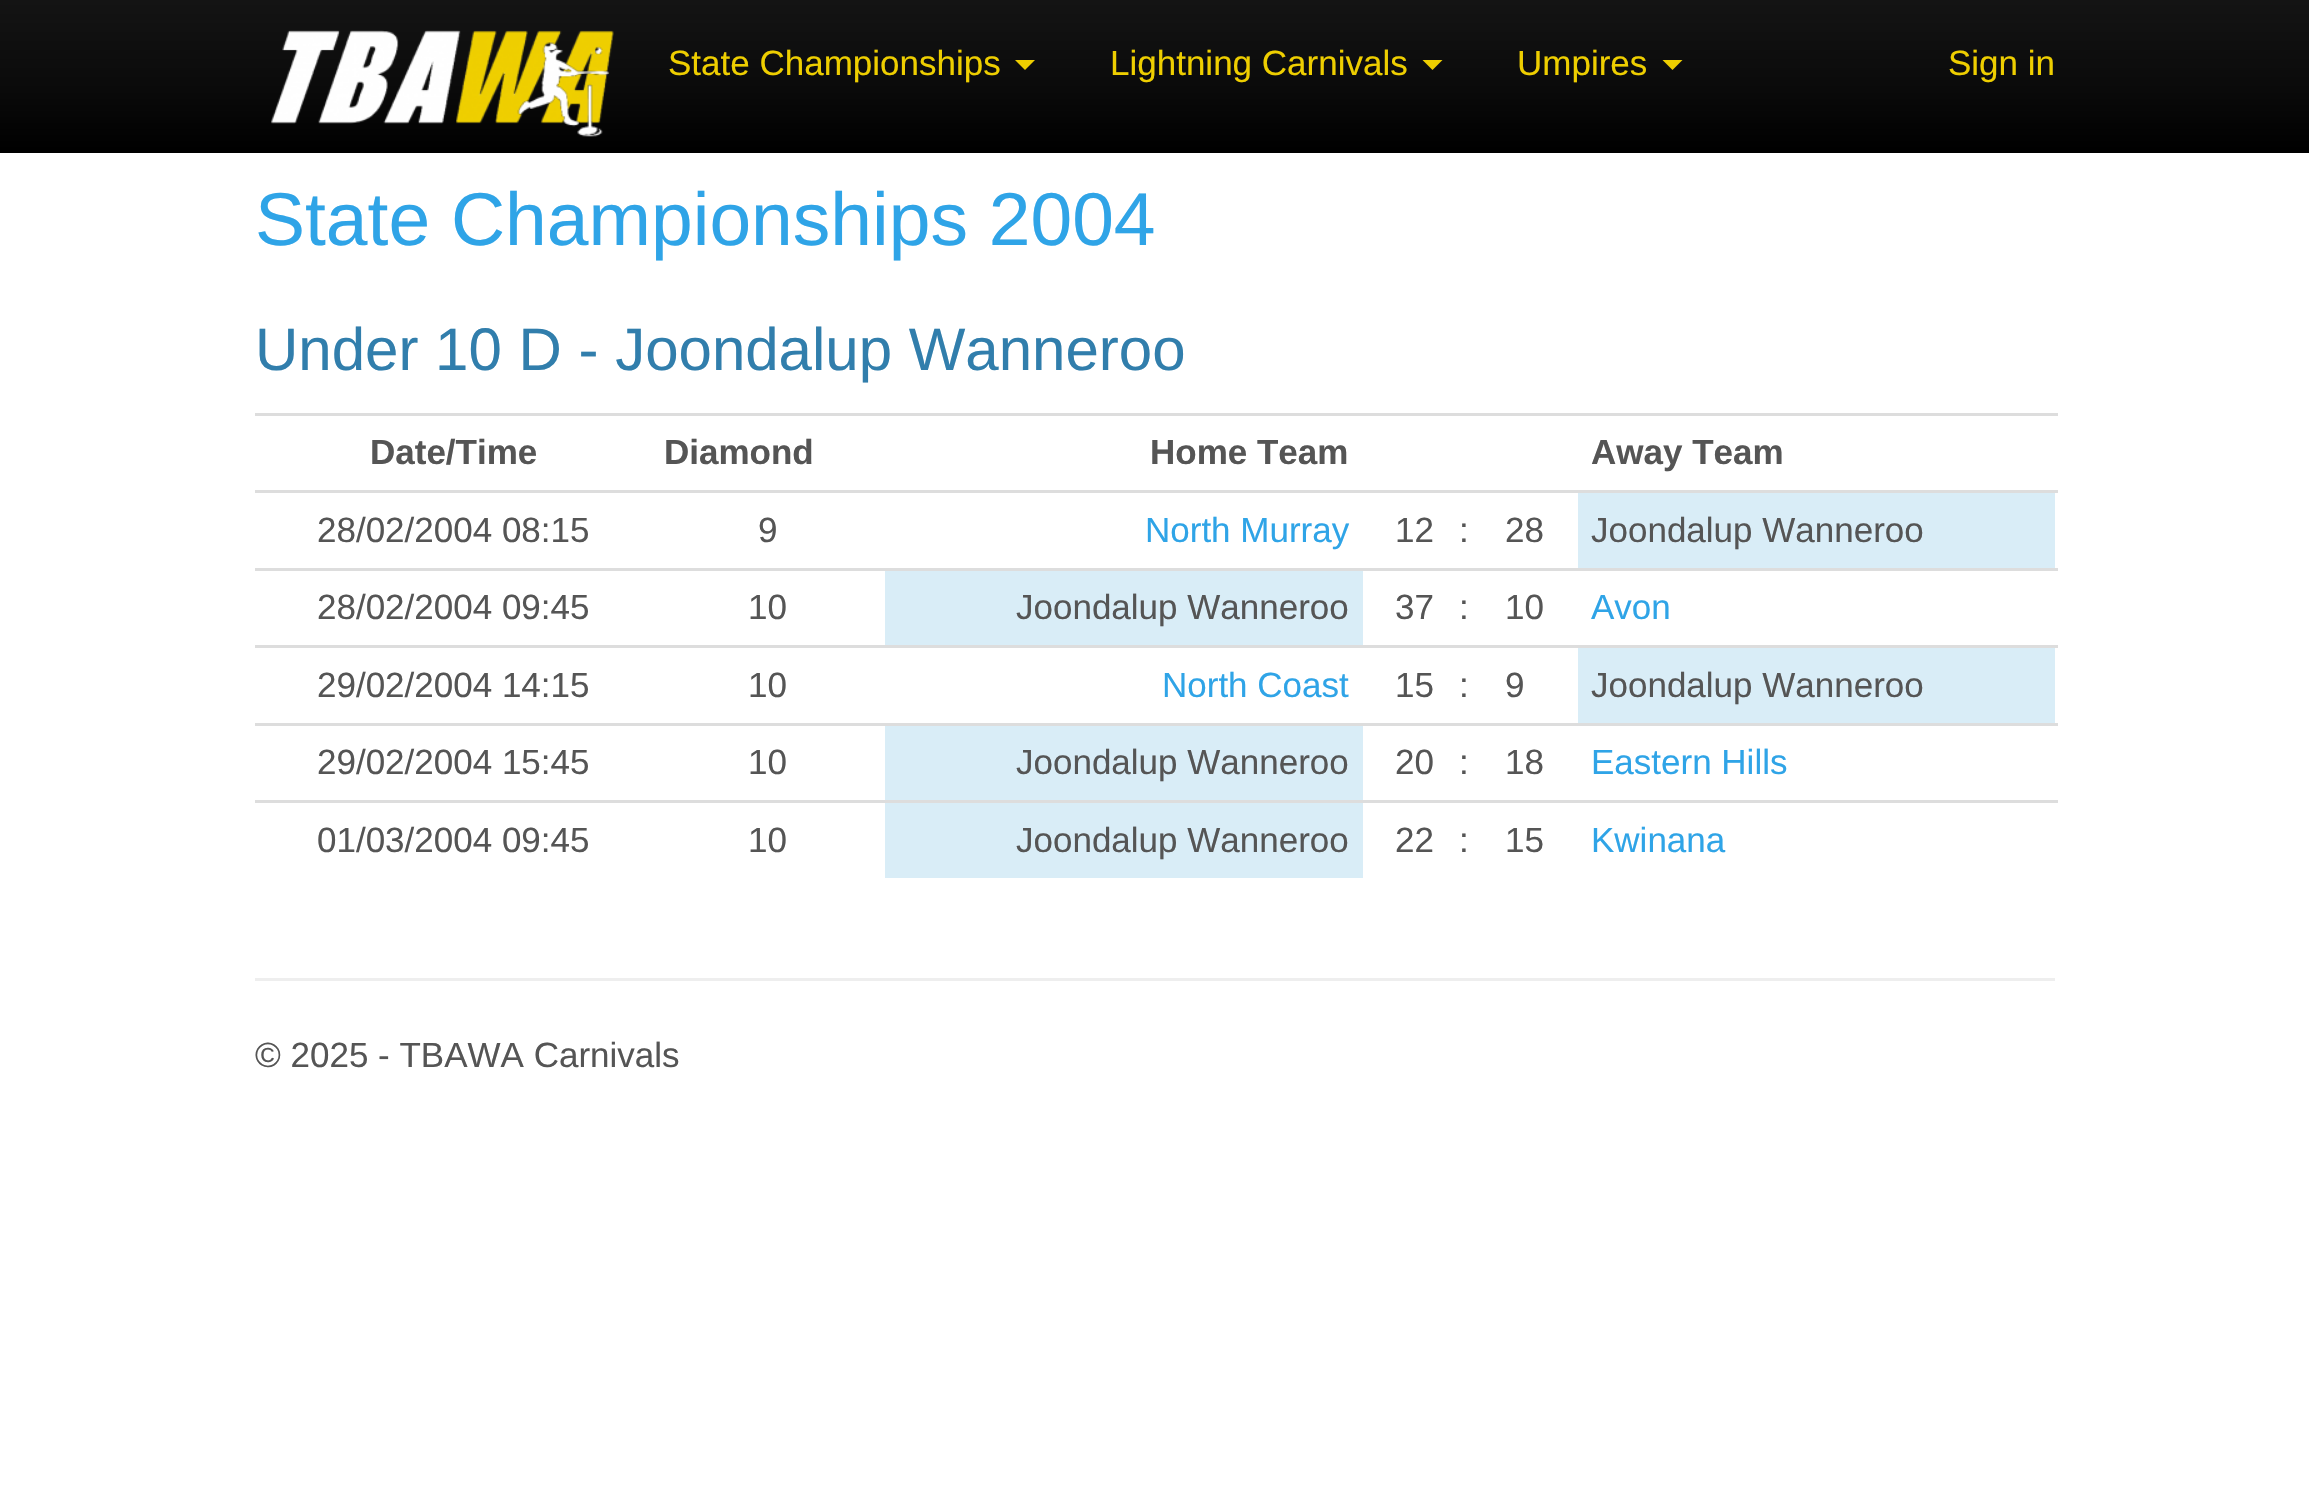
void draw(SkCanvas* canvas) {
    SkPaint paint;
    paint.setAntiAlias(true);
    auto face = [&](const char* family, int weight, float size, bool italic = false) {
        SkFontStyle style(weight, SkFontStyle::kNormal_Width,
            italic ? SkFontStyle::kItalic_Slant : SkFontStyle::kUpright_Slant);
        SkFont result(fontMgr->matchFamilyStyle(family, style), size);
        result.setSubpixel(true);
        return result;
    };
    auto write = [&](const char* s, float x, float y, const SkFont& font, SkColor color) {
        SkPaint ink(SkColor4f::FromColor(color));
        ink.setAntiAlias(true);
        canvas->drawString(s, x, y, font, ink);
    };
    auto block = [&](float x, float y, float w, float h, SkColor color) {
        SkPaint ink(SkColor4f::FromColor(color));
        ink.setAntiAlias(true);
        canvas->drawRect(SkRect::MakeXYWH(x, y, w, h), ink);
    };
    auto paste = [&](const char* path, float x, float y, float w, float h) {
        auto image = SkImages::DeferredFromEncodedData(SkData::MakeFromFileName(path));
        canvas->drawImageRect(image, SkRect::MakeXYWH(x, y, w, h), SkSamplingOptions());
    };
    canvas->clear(SK_ColorWHITE);
    {
        const SkColor colors[] = {SkColorSetRGB(20, 20, 20), SkColorSetRGB(10, 10, 10), SK_ColorBLACK};
        const float stops[] = {0, 0.6f, 1};
        const SkPoint ends[] = {{1155, 0}, {1155, 150}};
        paint.setShader(SkGradientShader::MakeLinear(ends, colors, stops, 3, SkTileMode::kClamp));
        paint.setAlpha(255);
    }
    canvas->drawRect(SkRect::MakeXYWH(0, 0, 2309, 150), paint);
    block(0, 150, 2309, 3, SK_ColorBLACK);
    paste("pic1.png", 271, 30, 343, 107);
    auto kFont1 = face("Liberation Sans", 400, 35);
    write("State Championships", 668, 75, kFont1, SkColorSetRGB(238, 206, 0));
    paint.setShader(nullptr);
    paint.setColor(SkColorSetRGB(238, 206, 0));
    canvas->drawPath(SkPathBuilder().moveTo(1015, 60).lineTo(1035, 60).lineTo(1025, 70).close().detach(), paint);
    write("Lightning Carnivals", 1110, 75, kFont1, SkColorSetRGB(238, 206, 0));
    canvas->drawPath(SkPathBuilder().moveTo(1422.5f, 60).lineTo(1442.5f, 60).lineTo(1432.5f, 70).close().detach(), paint);
    write("Umpires", 1517, 75, kFont1, SkColorSetRGB(238, 206, 0));
    canvas->drawPath(SkPathBuilder().moveTo(1662.5f, 60).lineTo(1682.5f, 60).lineTo(1672.5f, 70).close().detach(), paint);
    write("Sign in", 1948, 75, kFont1, SkColorSetRGB(238, 206, 0));
    auto kFont2 = face("Liberation Sans", 400, 75);
    write("State Championships 2004", 255, 245, kFont2, SkColorSetRGB(47, 164, 231));
    auto kFont3 = face("Liberation Sans", 400, 60);
    write("Under 10 D - Joondalup Wanneroo", 255, 370, kFont3, SkColorSetRGB(49, 126, 172));
    auto kFont4 = face("Liberation Sans", 700, 35);
    write("Date/Time", 370, 464, kFont4, SkColorSetRGB(85, 85, 85));
    write("Diamond", 664, 464, kFont4, SkColorSetRGB(85, 85, 85));
    write("Home Team", 1150, 464, kFont4, SkColorSetRGB(85, 85, 85));
    block(255, 413, 1803, 3, SkColorSetRGB(221, 221, 221));
    write("Away Team", 1591, 464, kFont4, SkColorSetRGB(85, 85, 85));
    write("28/02/2004 08:15", 317, 542, kFont1, SkColorSetRGB(85, 85, 85));
    write("9", 758, 542, kFont1, SkColorSetRGB(85, 85, 85));
    write("North Murray", 1145, 542, kFont1, SkColorSetRGB(47, 164, 231));
    write("12", 1395, 542, kFont1, SkColorSetRGB(85, 85, 85));
    write(":", 1459, 542, kFont1, SkColorSetRGB(85, 85, 85));
    write("28", 1505, 542, kFont1, SkColorSetRGB(85, 85, 85));
    block(1578, 493, 477, 75, SkColorSetRGB(217, 237, 247));
    block(255, 490, 1803, 3, SkColorSetRGB(221, 221, 221));
    write("Joondalup Wanneroo", 1591, 542, kFont1, SkColorSetRGB(85, 85, 85));
    write("28/02/2004 09:45", 317, 619, kFont1, SkColorSetRGB(85, 85, 85));
    write("10", 748, 619, kFont1, SkColorSetRGB(85, 85, 85));
    block(885, 571, 478, 74, SkColorSetRGB(217, 237, 247));
    write("Joondalup Wanneroo", 1016, 619, kFont1, SkColorSetRGB(85, 85, 85));
    write("37", 1395, 619, kFont1, SkColorSetRGB(85, 85, 85));
    write(":", 1459, 619, kFont1, SkColorSetRGB(85, 85, 85));
    write("10", 1505, 619, kFont1, SkColorSetRGB(85, 85, 85));
    block(255, 568, 1803, 3, SkColorSetRGB(221, 221, 221));
    write("Avon", 1591, 619, kFont1, SkColorSetRGB(47, 164, 231));
    write("29/02/2004 14:15", 317, 697, kFont1, SkColorSetRGB(85, 85, 85));
    write("10", 748, 697, kFont1, SkColorSetRGB(85, 85, 85));
    write("North Coast", 1162, 697, kFont1, SkColorSetRGB(47, 164, 231));
    write("15", 1395, 697, kFont1, SkColorSetRGB(85, 85, 85));
    write(":", 1459, 697, kFont1, SkColorSetRGB(85, 85, 85));
    write("9", 1505, 697, kFont1, SkColorSetRGB(85, 85, 85));
    block(1578, 648, 477, 75, SkColorSetRGB(217, 237, 247));
    block(255, 645, 1803, 3, SkColorSetRGB(221, 221, 221));
    write("Joondalup Wanneroo", 1591, 697, kFont1, SkColorSetRGB(85, 85, 85));
    write("29/02/2004 15:45", 317, 774, kFont1, SkColorSetRGB(85, 85, 85));
    write("10", 748, 774, kFont1, SkColorSetRGB(85, 85, 85));
    block(885, 726, 478, 74, SkColorSetRGB(217, 237, 247));
    write("Joondalup Wanneroo", 1016, 774, kFont1, SkColorSetRGB(85, 85, 85));
    write("20", 1395, 774, kFont1, SkColorSetRGB(85, 85, 85));
    write(":", 1459, 774, kFont1, SkColorSetRGB(85, 85, 85));
    write("18", 1505, 774, kFont1, SkColorSetRGB(85, 85, 85));
    block(255, 723, 1803, 3, SkColorSetRGB(221, 221, 221));
    write("Eastern Hills", 1591, 774, kFont1, SkColorSetRGB(47, 164, 231));
    write("01/03/2004 09:45", 317, 852, kFont1, SkColorSetRGB(85, 85, 85));
    write("10", 748, 852, kFont1, SkColorSetRGB(85, 85, 85));
    block(885, 803, 478, 75, SkColorSetRGB(217, 237, 247));
    write("Joondalup Wanneroo", 1016, 852, kFont1, SkColorSetRGB(85, 85, 85));
    write("22", 1395, 852, kFont1, SkColorSetRGB(85, 85, 85));
    write(":", 1459, 852, kFont1, SkColorSetRGB(85, 85, 85));
    write("15", 1505, 852, kFont1, SkColorSetRGB(85, 85, 85));
    block(255, 800, 1803, 3, SkColorSetRGB(221, 221, 221));
    write("Kwinana", 1591, 852, kFont1, SkColorSetRGB(47, 164, 231));
    block(255, 978, 1800, 3, SkColorSetRGB(238, 238, 238));
    write("© 2025 - TBAWA Carnivals", 255, 1067, kFont1, SkColorSetRGB(85, 85, 85));
}
